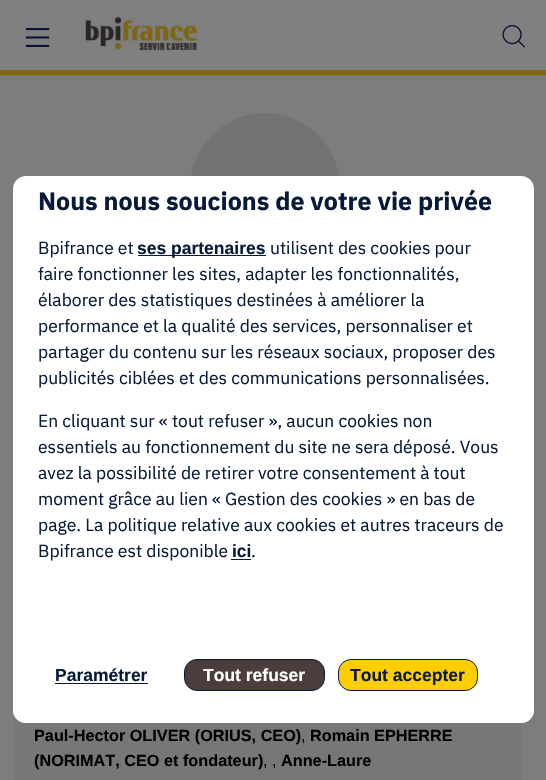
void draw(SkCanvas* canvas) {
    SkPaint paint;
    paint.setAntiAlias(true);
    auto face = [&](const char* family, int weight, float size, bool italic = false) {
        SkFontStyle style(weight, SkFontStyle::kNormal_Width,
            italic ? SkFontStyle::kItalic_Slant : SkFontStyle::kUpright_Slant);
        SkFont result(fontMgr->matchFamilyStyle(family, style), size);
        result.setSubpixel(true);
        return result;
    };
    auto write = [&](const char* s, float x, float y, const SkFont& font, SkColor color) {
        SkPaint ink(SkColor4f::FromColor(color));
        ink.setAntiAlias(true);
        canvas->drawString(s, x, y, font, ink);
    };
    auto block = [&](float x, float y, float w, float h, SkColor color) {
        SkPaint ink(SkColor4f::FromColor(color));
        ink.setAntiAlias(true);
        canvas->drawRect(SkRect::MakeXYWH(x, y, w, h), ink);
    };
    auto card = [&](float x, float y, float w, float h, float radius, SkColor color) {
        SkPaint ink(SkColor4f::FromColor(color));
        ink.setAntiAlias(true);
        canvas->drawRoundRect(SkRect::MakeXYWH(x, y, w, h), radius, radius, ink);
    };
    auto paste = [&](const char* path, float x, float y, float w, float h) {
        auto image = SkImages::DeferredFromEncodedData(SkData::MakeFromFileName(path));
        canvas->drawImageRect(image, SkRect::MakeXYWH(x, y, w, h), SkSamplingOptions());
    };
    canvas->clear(SkColorSetRGB(128, 128, 128));
    block(0, 75, 546, 705, SkColorSetRGB(125, 125, 125));
    paint.setColor(SkColorSetRGB(115, 115, 115));
    canvas->drawCircle(265, 188, 75, paint);
    block(15, 716, 506, 64, SkColorSetRGB(119, 119, 119));
    card(13, 176, 521, 547, 13, SK_ColorWHITE);
    auto kFont1 = face("IBM Plex Sans", 700, 25);
    write("Nous nous soucions de votre vie privée", 38, 210, kFont1, SkColorSetRGB(7, 26, 57));
    auto kFont2 = face("IBM Plex Sans", 400, 17.5f);
    write("Bpifrance et", 38, 254, kFont2, SkColorSetRGB(7, 26, 57));
    block(138, 255, 128, 1, SkColorSetRGB(7, 26, 57));
    auto kFont3 = face("Liberation Sans", 700, 17.5f);
    write("ses partenaires", 137, 254, kFont3, SkColorSetRGB(7, 26, 57));
    write("utilisent des cookies pour", 270, 254, kFont2, SkColorSetRGB(7, 26, 57));
    write("faire fonctionner les sites, adapter les fonctionnalités,", 38, 280, kFont2, SkColorSetRGB(7, 26, 57));
    write("élaborer des statistiques destinées à améliorer la", 38, 306, kFont2, SkColorSetRGB(7, 26, 57));
    write("performance et la qualité des services, personnaliser et", 38, 332, kFont2, SkColorSetRGB(7, 26, 57));
    write("partager du contenu sur les réseaux sociaux, proposer des", 38, 358, kFont2, SkColorSetRGB(7, 26, 57));
    write("publicités ciblées et des communications personnalisées.", 38, 384, kFont2, SkColorSetRGB(7, 26, 57));
    write("En cliquant sur « tout refuser », aucun cookies non", 38, 427, kFont2, SkColorSetRGB(7, 26, 57));
    write("essentiels au fonctionnement du site ne sera déposé. Vous", 38, 453, kFont2, SkColorSetRGB(7, 26, 57));
    write("avez la possibilité de retirer votre consentement à tout", 38, 479, kFont2, SkColorSetRGB(7, 26, 57));
    write("moment grâce au lien « Gestion des cookies » en bas de", 38, 505, kFont2, SkColorSetRGB(7, 26, 57));
    write("page. La politique relative aux cookies et autres traceurs de", 38, 531, kFont2, SkColorSetRGB(7, 26, 57));
    write("Bpifrance est disponible", 38, 557, kFont2, SkColorSetRGB(7, 26, 57));
    write("ici", 232, 557, kFont3, SkColorSetRGB(7, 26, 57));
    block(231, 559, 20, 1, SkColorSetRGB(7, 26, 57));
    write(".", 251, 557, kFont2, SkColorSetRGB(7, 26, 57));
    {
        const SkColor colors[] = {SK_ColorWHITE, SkColorSetARGB(0, 255, 255, 255)};
        const float stops[] = {0.6f, 1};
        const SkPoint ends[] = {{273, 723}, {273, 653}};
        paint.setShader(SkGradientShader::MakeLinear(ends, colors, stops, 2, SkTileMode::kClamp));
        paint.setAlpha(255);
    }
    canvas->drawPath(SkPathBuilder().moveTo(13, 653).lineTo(534, 653).lineTo(534, 710).cubicTo(534, 717, 528, 723, 521, 723).lineTo(26, 723).cubicTo(19, 723, 13, 717, 13, 710).close().detach(), paint);
    write("Paramétrer", 55, 681, kFont3, SkColorSetRGB(7, 26, 57));
    block(55, 683, 93, 1, SkColorSetRGB(7, 26, 57));
    paint.setShader(nullptr);
    paint.setColor(SkColorSetRGB(75, 61, 60));
    canvas->drawRoundRect(SkRect::MakeXYWH(184.5f, 659.5f, 140, 31), 12.5f, 12.5f, paint);
    paint.setStyle(SkPaint::kStroke_Style);
    paint.setStrokeWidth(1);
    paint.setColor(SkColorSetRGB(7, 26, 57));
    canvas->drawRoundRect(SkRect::MakeXYWH(184.5f, 659.5f, 140, 31), 12.5f, 12.5f, paint);
    write("Tout refuser", 203, 681, kFont3, SK_ColorWHITE);
    paint.setStyle(SkPaint::kFill_Style);
    paint.setColor(SkColorSetRGB(255, 205, 0));
    canvas->drawRoundRect(SkRect::MakeXYWH(338.5f, 659.5f, 139, 31), 12.5f, 12.5f, paint);
    paint.setStyle(SkPaint::kStroke_Style);
    paint.setColor(SkColorSetRGB(7, 26, 57));
    canvas->drawRoundRect(SkRect::MakeXYWH(338.5f, 659.5f, 139, 31), 12.5f, 12.5f, paint);
    write("Tout accepter", 350, 681, kFont3, SkColorSetRGB(7, 26, 57));
    paste("pic1.png", 25, 28, 25, 19);
    block(0, 70, 546, 5, SkColorSetRGB(128, 103, 0));
    paste("pic2.png", 85, 16, 114, 35);
    paste("pic3.png", 502, 25, 23, 23);
    auto kFont4 = face("Liberation Sans", 700, 16.25f);
    write("Paul-Hector OLIVER (ORIUS, CEO)", 34, 741, kFont4, SK_ColorBLACK);
    auto kFont5 = face("Liberation Sans", 400, 16.25f);
    write(",", 301, 741, kFont5, SK_ColorBLACK);
    write("Romain EPHERRE", 310, 741, kFont4, SK_ColorBLACK);
    write("(NORIMAT, CEO et fondateur)", 34, 766, kFont4, SK_ColorBLACK);
    write(", ,", 263, 766, kFont5, SK_ColorBLACK);
    write("Anne-Laure", 281, 766, kFont4, SK_ColorBLACK);
}
